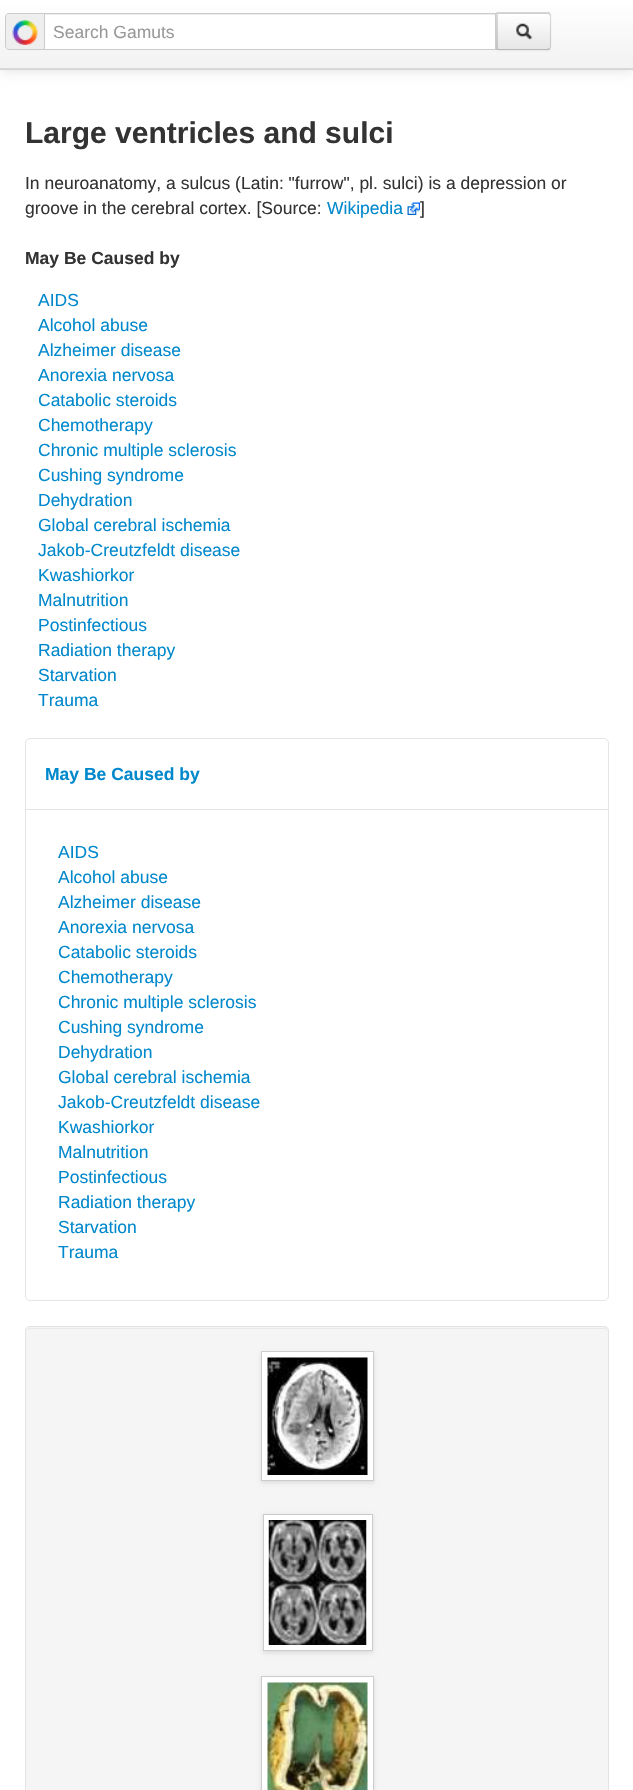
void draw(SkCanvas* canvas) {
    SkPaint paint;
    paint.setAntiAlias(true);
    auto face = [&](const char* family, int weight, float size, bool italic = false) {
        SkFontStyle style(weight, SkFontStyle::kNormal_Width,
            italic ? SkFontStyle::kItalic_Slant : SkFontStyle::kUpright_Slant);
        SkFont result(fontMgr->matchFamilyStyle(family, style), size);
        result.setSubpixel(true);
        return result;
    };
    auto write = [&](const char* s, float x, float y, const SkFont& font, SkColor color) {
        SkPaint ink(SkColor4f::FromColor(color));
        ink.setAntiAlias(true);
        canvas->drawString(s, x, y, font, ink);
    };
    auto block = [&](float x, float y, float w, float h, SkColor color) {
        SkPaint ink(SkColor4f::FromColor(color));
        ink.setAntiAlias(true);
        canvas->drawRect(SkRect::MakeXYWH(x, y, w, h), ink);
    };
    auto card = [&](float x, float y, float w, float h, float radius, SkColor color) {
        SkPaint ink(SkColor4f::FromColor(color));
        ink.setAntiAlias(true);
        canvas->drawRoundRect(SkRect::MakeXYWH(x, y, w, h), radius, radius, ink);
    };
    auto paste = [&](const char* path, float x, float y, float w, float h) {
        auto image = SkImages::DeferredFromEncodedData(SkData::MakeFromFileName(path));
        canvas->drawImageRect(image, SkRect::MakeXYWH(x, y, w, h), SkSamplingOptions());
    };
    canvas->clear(SK_ColorWHITE);
    paint.setColor(SkColorSetARGB(26, 0, 0, 0));
    paint.setMaskFilter(SkMaskFilter::MakeBlur(kNormal_SkBlurStyle, 6));
    canvas->drawRect(SkRect::MakeXYWH(0, 1, 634, 70), paint);
    paint.setMaskFilter(nullptr);
    {
        const SkColor colors[] = {SK_ColorWHITE, SkColorSetRGB(242, 242, 242)};
        const float stops[] = {0, 1};
        const SkPoint ends[] = {{317, 0}, {317, 69}};
        paint.setShader(SkGradientShader::MakeLinear(ends, colors, stops, 2, SkTileMode::kClamp));
        paint.setAlpha(255);
    }
    canvas->drawRect(SkRect::MakeXYWH(0, 0, 633, 68), paint);
    block(0, 68, 633, 1, SkColorSetRGB(218, 218, 218));
    block(0, 69, 633, 1, SkColorSetRGB(212, 212, 212));
    paint.setShader(nullptr);
    paint.setColor(SkColorSetRGB(238, 238, 238));
    canvas->drawPath(SkPathBuilder().moveTo(9, 13.5f).lineTo(44.5f, 13.5f).lineTo(44.5f, 49.5f).lineTo(9, 49.5f).cubicTo(7, 49.5f, 5.5f, 48, 5.5f, 46).lineTo(5.5f, 17).cubicTo(5.5f, 15, 7, 13.5f, 9, 13.5f).close().detach(), paint);
    paint.setStyle(SkPaint::kStroke_Style);
    paint.setStrokeWidth(1);
    paint.setColor(SkColorSetRGB(204, 204, 204));
    canvas->drawPath(SkPathBuilder().moveTo(9, 13.5f).lineTo(44.5f, 13.5f).lineTo(44.5f, 49.5f).lineTo(9, 49.5f).cubicTo(7, 49.5f, 5.5f, 48, 5.5f, 46).lineTo(5.5f, 17).cubicTo(5.5f, 15, 7, 13.5f, 9, 13.5f).close().detach(), paint);
    paste("pic1.png", 12, 20, 26, 25);
    paint.setStyle(SkPaint::kFill_Style);
    paint.setColor(SkColorSetARGB(13, 0, 0, 0));
    paint.setMaskFilter(SkMaskFilter::MakeBlur(kNormal_SkBlurStyle, 1));
    canvas->drawRoundRect(SkRect::MakeXYWH(496, 14, 55, 37), 4, 4, paint);
    paint.setMaskFilter(nullptr);
    block(45, 15, 450, 34, SK_ColorWHITE);
    block(45, 14, 450, 1, SkColorSetRGB(236, 236, 236));
    paint.setStyle(SkPaint::kStroke_Style);
    paint.setColor(SkColorSetRGB(204, 204, 204));
    canvas->drawRect(SkRect::MakeXYWH(44.5f, 13.5f, 451, 36), paint);
    auto kFont1 = face("Liberation Sans", 400, 17.5f);
    write("Search Gamuts", 53, 38, kFont1, SkColorSetRGB(153, 153, 153));
    paint.setStyle(SkPaint::kFill_Style);
    paint.setColor(SkColorSetRGB(245, 245, 245));
    canvas->drawPath(SkPathBuilder().moveTo(496, 13).lineTo(547, 13).cubicTo(549, 13, 551, 15, 551, 17).lineTo(551, 46).cubicTo(551, 48, 549, 50, 547, 50).lineTo(496, 50).close().detach(), paint);
    canvas->save();
    canvas->clipPath(SkPathBuilder().moveTo(496, 13).lineTo(547, 13).cubicTo(549, 13, 551, 15, 551, 17).lineTo(551, 46).cubicTo(551, 48, 549, 50, 547, 50).lineTo(496, 50).close().detach(), true);
    {
        const SkColor colors[] = {SK_ColorWHITE, SkColorSetRGB(230, 230, 230)};
        const float stops[] = {0, 1};
        const SkPoint ends[] = {{524, 14}, {524, 49}};
        paint.setShader(SkGradientShader::MakeLinear(ends, colors, stops, 2, SkTileMode::kClamp));
        paint.setAlpha(255);
    }
    canvas->drawRect(SkRect::MakeXYWH(496, 14, 55, 35), paint);
    canvas->restore();
    paint.setShader(nullptr);
    paint.setColor(SkColorSetARGB(38, 0, 0, 0));
    canvas->drawPath(SkPathBuilder().moveTo(498, 14).lineTo(496, 12).lineTo(550, 12).lineTo(550, 13).lineTo(549, 15).lineTo(548, 14).close().detach(), paint);
    canvas->drawPath(SkPathBuilder().moveTo(550.5f, 13.5f).cubicTo(551, 14, 551, 15, 551, 16).lineTo(551, 46).cubicTo(551, 47, 550.5f, 48, 550, 49).lineTo(549.5f, 48).cubicTo(550.5f, 46.5f, 550, 42, 550, 41).lineTo(550, 16).lineTo(549, 14.5f).close().detach(), paint);
    paint.setColor(SkColorSetARGB(64, 0, 0, 0));
    canvas->drawPath(SkPathBuilder().moveTo(496, 50).lineTo(549, 50).lineTo(550, 49).lineTo(549, 48).lineTo(548, 49).lineTo(498, 49).lineTo(498, 48).close().detach(), paint);
    paint.setColor(SkColorSetARGB(38, 0, 0, 0));
    canvas->drawPath(SkPathBuilder().moveTo(496, 50).lineTo(498, 48).lineTo(498, 14).lineTo(496, 12.5f).close().detach(), paint);
    paste("pic2.png", 516, 23, 17, 17);
    auto kFont2 = face("Liberation Sans", 700, 30);
    write("Large ventricles and sulci", 25, 143, kFont2, SkColorSetRGB(51, 51, 51));
    write("In neuroanatomy, a sulcus (Latin: \"furrow\", pl. sulci) is a depression or", 25, 189, kFont1, SkColorSetRGB(51, 51, 51));
    write("groove in the cerebral cortex. [Source:", 25, 214, kFont1, SkColorSetRGB(51, 51, 51));
    write("Wikipedia", 327, 214, kFont1, SkColorSetRGB(0, 136, 204));
    paste("pic3.png", 407, 202, 13, 13);
    write("]", 420, 214, kFont1, SkColorSetRGB(51, 51, 51));
    auto kFont3 = face("Liberation Sans", 700, 17.5f);
    write("May Be Caused by", 25, 264, kFont3, SkColorSetRGB(51, 51, 51));
    write("AIDS", 38, 306, kFont1, SkColorSetRGB(0, 136, 204));
    write("Alcohol abuse", 38, 331, kFont1, SkColorSetRGB(0, 136, 204));
    write("Alzheimer disease", 38, 356, kFont1, SkColorSetRGB(0, 136, 204));
    write("Anorexia nervosa", 38, 381, kFont1, SkColorSetRGB(0, 136, 204));
    write("Catabolic steroids", 38, 406, kFont1, SkColorSetRGB(0, 136, 204));
    write("Chemotherapy", 38, 431, kFont1, SkColorSetRGB(0, 136, 204));
    write("Chronic multiple sclerosis", 38, 456, kFont1, SkColorSetRGB(0, 136, 204));
    write("Cushing syndrome", 38, 481, kFont1, SkColorSetRGB(0, 136, 204));
    write("Dehydration", 38, 506, kFont1, SkColorSetRGB(0, 136, 204));
    write("Global cerebral ischemia", 38, 531, kFont1, SkColorSetRGB(0, 136, 204));
    write("Jakob-Creutzfeldt disease", 38, 556, kFont1, SkColorSetRGB(0, 136, 204));
    write("Kwashiorkor", 38, 581, kFont1, SkColorSetRGB(0, 136, 204));
    write("Malnutrition", 38, 606, kFont1, SkColorSetRGB(0, 136, 204));
    write("Postinfectious", 38, 631, kFont1, SkColorSetRGB(0, 136, 204));
    write("Radiation therapy", 38, 656, kFont1, SkColorSetRGB(0, 136, 204));
    write("Starvation", 38, 681, kFont1, SkColorSetRGB(0, 136, 204));
    write("Trauma", 38, 706, kFont1, SkColorSetRGB(0, 136, 204));
    paint.setStyle(SkPaint::kStroke_Style);
    paint.setColor(SkColorSetRGB(229, 229, 229));
    canvas->drawRoundRect(SkRect::MakeXYWH(25.5f, 738.5f, 583, 562), 4.5f, 4.5f, paint);
    write("May Be Caused by", 45, 780, kFont3, SkColorSetRGB(0, 136, 204));
    block(26, 809, 582, 1, SkColorSetRGB(229, 229, 229));
    write("AIDS", 58, 858, kFont1, SkColorSetRGB(0, 136, 204));
    write("Alcohol abuse", 58, 883, kFont1, SkColorSetRGB(0, 136, 204));
    write("Alzheimer disease", 58, 908, kFont1, SkColorSetRGB(0, 136, 204));
    write("Anorexia nervosa", 58, 933, kFont1, SkColorSetRGB(0, 136, 204));
    write("Catabolic steroids", 58, 958, kFont1, SkColorSetRGB(0, 136, 204));
    write("Chemotherapy", 58, 983, kFont1, SkColorSetRGB(0, 136, 204));
    write("Chronic multiple sclerosis", 58, 1008, kFont1, SkColorSetRGB(0, 136, 204));
    write("Cushing syndrome", 58, 1033, kFont1, SkColorSetRGB(0, 136, 204));
    write("Dehydration", 58, 1058, kFont1, SkColorSetRGB(0, 136, 204));
    write("Global cerebral ischemia", 58, 1083, kFont1, SkColorSetRGB(0, 136, 204));
    write("Jakob-Creutzfeldt disease", 58, 1108, kFont1, SkColorSetRGB(0, 136, 204));
    write("Kwashiorkor", 58, 1133, kFont1, SkColorSetRGB(0, 136, 204));
    write("Malnutrition", 58, 1158, kFont1, SkColorSetRGB(0, 136, 204));
    write("Postinfectious", 58, 1183, kFont1, SkColorSetRGB(0, 136, 204));
    write("Radiation therapy", 58, 1208, kFont1, SkColorSetRGB(0, 136, 204));
    write("Starvation", 58, 1233, kFont1, SkColorSetRGB(0, 136, 204));
    write("Trauma", 58, 1258, kFont1, SkColorSetRGB(0, 136, 204));
    card(25, 1326, 584, 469, 5, SkColorSetRGB(245, 245, 245));
    paint.setStyle(SkPaint::kFill_Style);
    paint.setColor(SkColorSetRGB(233, 233, 233));
    canvas->drawPath(SkPathBuilder().moveTo(30, 1329).lineTo(604, 1329).cubicTo(606, 1329, 608, 1330, 608, 1332).cubicTo(608, 1330, 606, 1328, 604, 1328).lineTo(30, 1328).cubicTo(28, 1328, 26, 1330, 26, 1332).cubicTo(26, 1330, 28, 1329, 30, 1329).close().detach(), paint);
    paint.setStyle(SkPaint::kStroke_Style);
    paint.setColor(SkColorSetRGB(227, 227, 227));
    canvas->drawRoundRect(SkRect::MakeXYWH(25.5f, 1326.5f, 583, 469), 4.5f, 4.5f, paint);
    paint.setStyle(SkPaint::kFill_Style);
    paint.setColor(SkColorSetARGB(26, 0, 0, 0));
    paint.setMaskFilter(SkMaskFilter::MakeBlur(kNormal_SkBlurStyle, 2));
    canvas->drawRect(SkRect::MakeXYWH(261, 1353, 113, 130), paint);
    paint.setMaskFilter(nullptr);
    paint.setColor(SK_ColorWHITE);
    canvas->drawRect(SkRect::MakeXYWH(261.5f, 1351.5f, 112, 129), paint);
    paint.setStyle(SkPaint::kStroke_Style);
    paint.setColor(SkColorSetRGB(204, 204, 204));
    canvas->drawRect(SkRect::MakeXYWH(261.5f, 1351.5f, 112, 129), paint);
    paste("pic4.png", 267, 1357, 101, 118);
    paint.setStyle(SkPaint::kFill_Style);
    paint.setColor(SkColorSetARGB(26, 0, 0, 0));
    paint.setMaskFilter(SkMaskFilter::MakeBlur(kNormal_SkBlurStyle, 2));
    canvas->drawRect(SkRect::MakeXYWH(263, 1515, 110, 138), paint);
    paint.setMaskFilter(nullptr);
    paint.setColor(SK_ColorWHITE);
    canvas->drawRect(SkRect::MakeXYWH(263.5f, 1514.5f, 109, 136), paint);
    paint.setStyle(SkPaint::kStroke_Style);
    paint.setColor(SkColorSetRGB(204, 204, 204));
    canvas->drawRect(SkRect::MakeXYWH(263.5f, 1514.5f, 109, 136), paint);
    paste("pic5.png", 268, 1520, 99, 125);
    paint.setStyle(SkPaint::kFill_Style);
    paint.setColor(SkColorSetARGB(26, 0, 0, 0));
    paint.setMaskFilter(SkMaskFilter::MakeBlur(kNormal_SkBlurStyle, 2));
    canvas->drawRect(SkRect::MakeXYWH(261, 1678, 113, 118), paint);
    paint.setMaskFilter(nullptr);
    paint.setColor(SK_ColorWHITE);
    canvas->drawRect(SkRect::MakeXYWH(261.5f, 1676.5f, 112, 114), paint);
    paint.setStyle(SkPaint::kStroke_Style);
    paint.setColor(SkColorSetRGB(204, 204, 204));
    canvas->drawRect(SkRect::MakeXYWH(261.5f, 1676.5f, 112, 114), paint);
    paste("pic6.png", 267, 1682, 101, 108);
}
